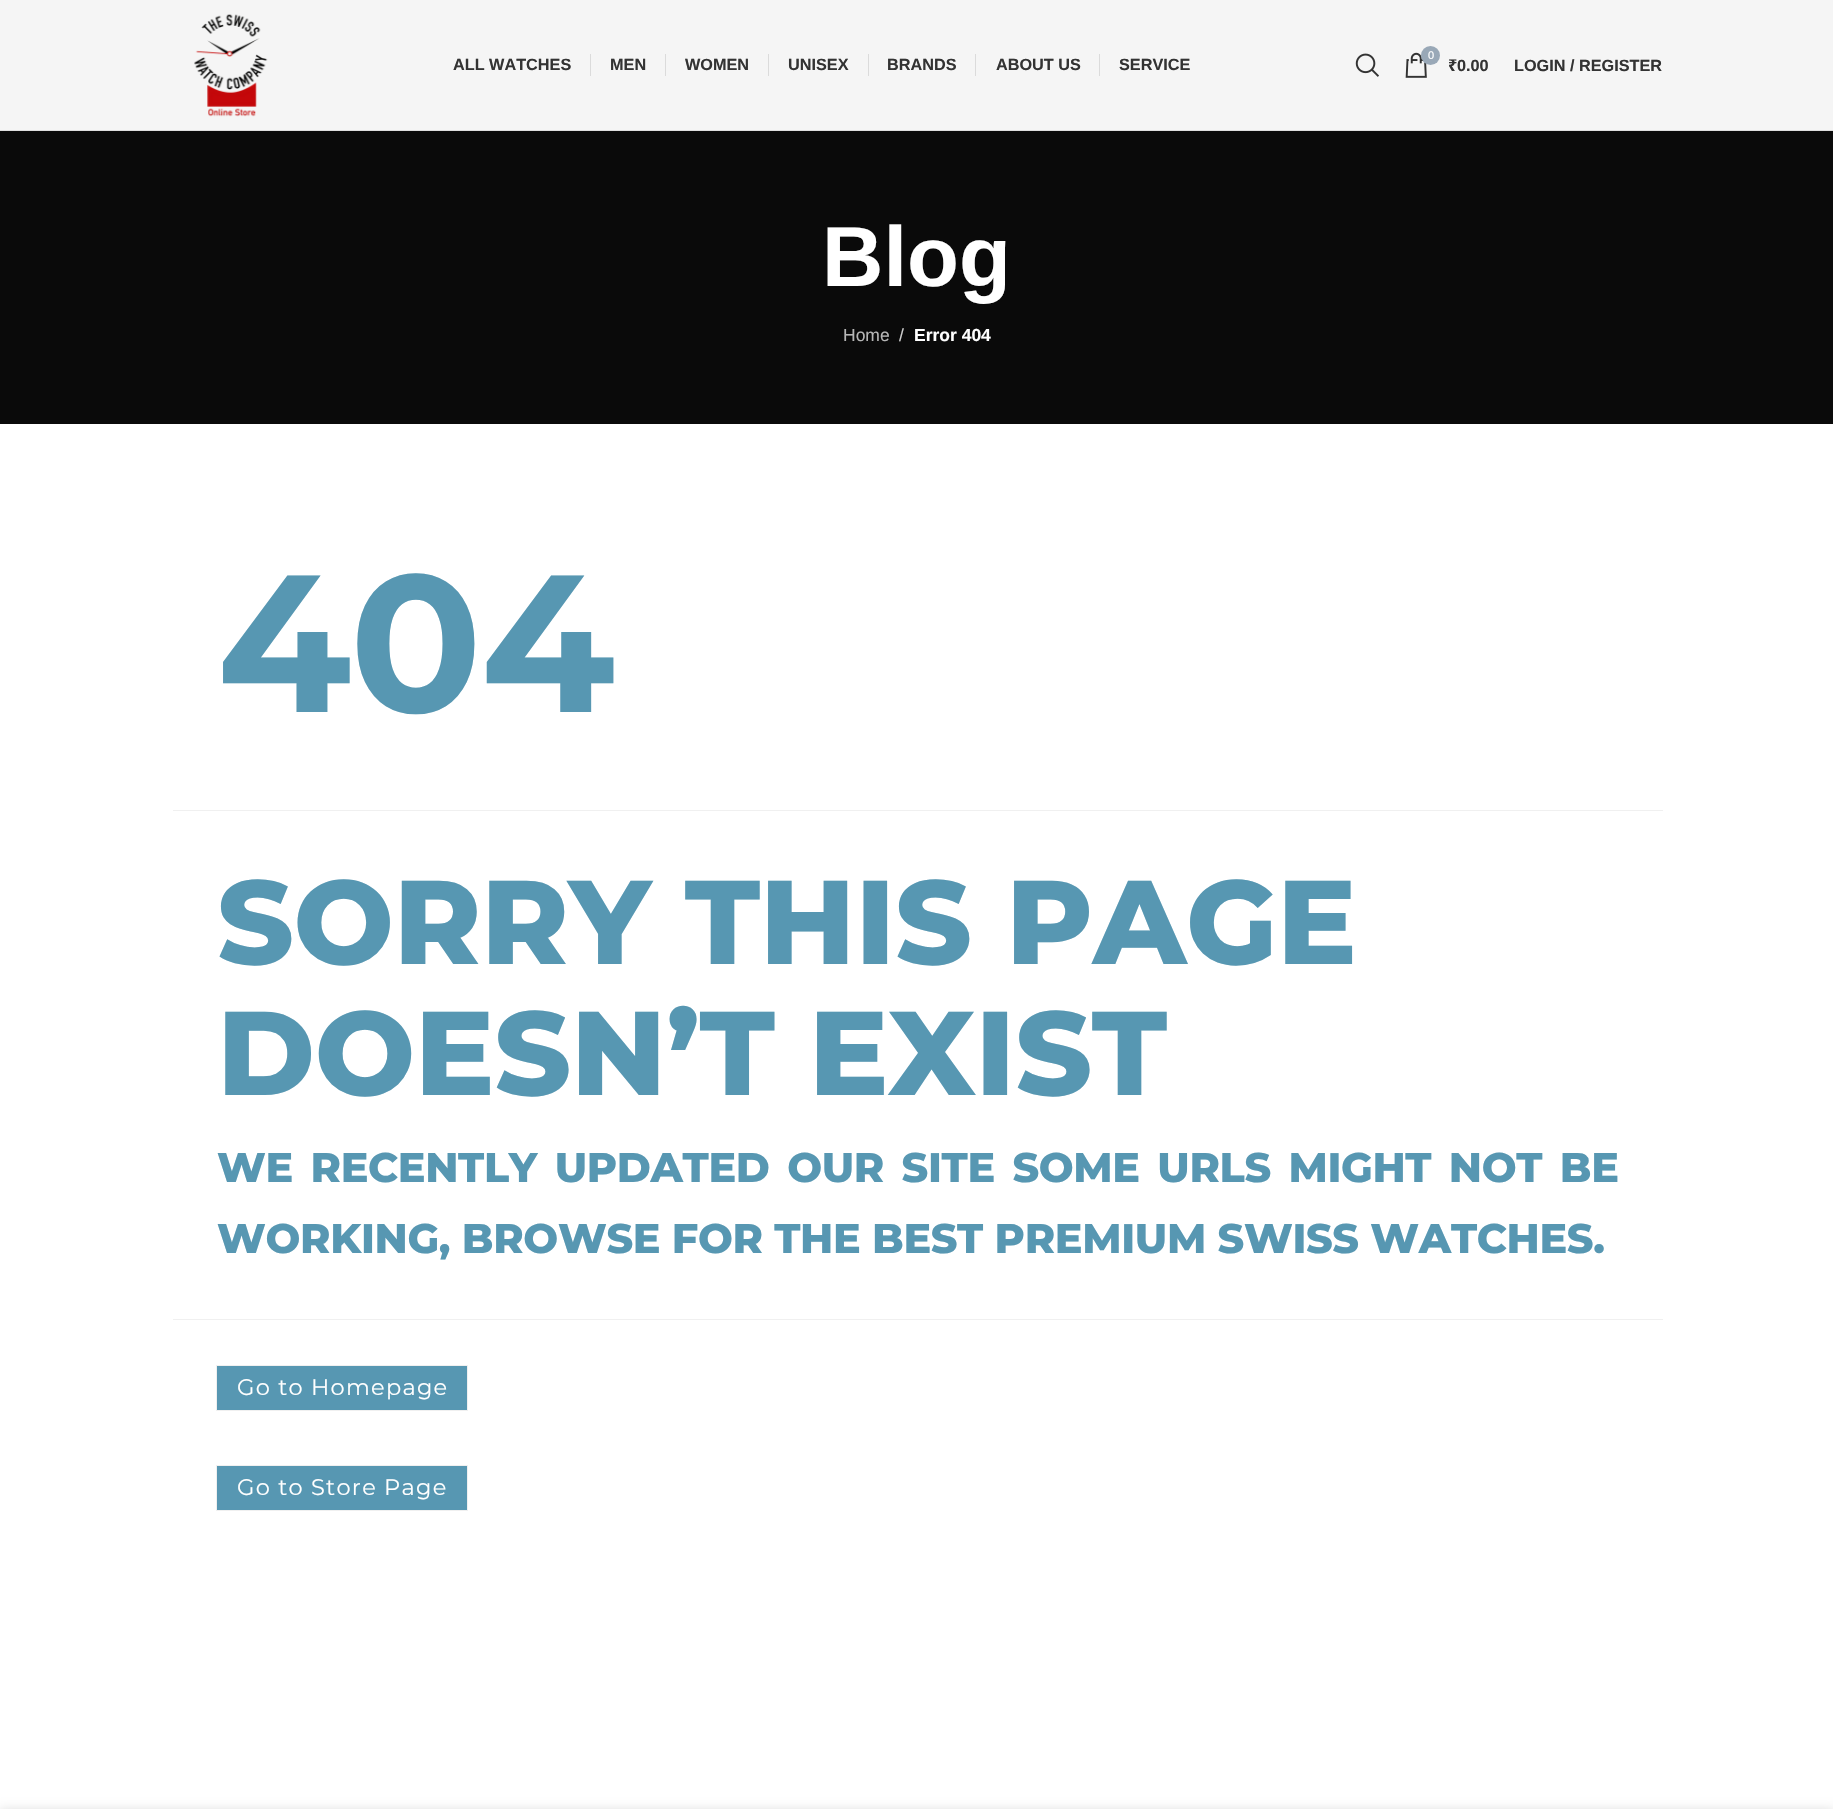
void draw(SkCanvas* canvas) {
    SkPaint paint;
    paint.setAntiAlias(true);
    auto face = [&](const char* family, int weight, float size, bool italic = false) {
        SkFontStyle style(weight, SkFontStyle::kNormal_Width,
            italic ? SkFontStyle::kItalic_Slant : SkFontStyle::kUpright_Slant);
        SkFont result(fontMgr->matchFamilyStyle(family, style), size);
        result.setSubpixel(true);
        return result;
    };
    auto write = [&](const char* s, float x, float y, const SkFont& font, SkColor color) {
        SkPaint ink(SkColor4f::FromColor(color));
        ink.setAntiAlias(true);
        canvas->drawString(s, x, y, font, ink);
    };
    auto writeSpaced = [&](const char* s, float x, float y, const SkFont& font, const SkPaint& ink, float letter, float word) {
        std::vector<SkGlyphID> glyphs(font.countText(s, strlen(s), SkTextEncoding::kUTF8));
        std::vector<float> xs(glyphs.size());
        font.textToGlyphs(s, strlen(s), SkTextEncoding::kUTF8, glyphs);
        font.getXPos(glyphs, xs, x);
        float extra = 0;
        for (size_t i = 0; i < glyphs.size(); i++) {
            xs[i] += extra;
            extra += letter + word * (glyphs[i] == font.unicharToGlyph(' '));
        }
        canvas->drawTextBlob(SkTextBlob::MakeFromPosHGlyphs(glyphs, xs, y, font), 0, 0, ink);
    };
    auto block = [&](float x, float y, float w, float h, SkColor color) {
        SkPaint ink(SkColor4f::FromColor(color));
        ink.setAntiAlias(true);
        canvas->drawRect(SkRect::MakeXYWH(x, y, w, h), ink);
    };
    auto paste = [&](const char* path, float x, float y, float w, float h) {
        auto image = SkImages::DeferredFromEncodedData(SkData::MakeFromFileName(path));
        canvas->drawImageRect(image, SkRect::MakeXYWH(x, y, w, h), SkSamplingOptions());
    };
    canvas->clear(SK_ColorWHITE);
    block(0, 0, 1833, 130, SkColorSetRGB(245, 245, 245));
    block(0, 130, 1833, 1, SkColorSetRGB(222, 222, 222));
    paste("pic1.png", 194, 14, 74, 103);
    auto kFont1 = face("Liberation Sans", 700, 16.25f);
    write("ALL WATCHES", 453, 70, kFont1, SkColorSetRGB(51, 51, 51));
    block(590, 54, 1, 22, SkColorSetRGB(219, 219, 219));
    write("MEN", 610, 70, kFont1, SkColorSetRGB(51, 51, 51));
    block(665, 54, 1, 22, SkColorSetRGB(219, 219, 219));
    write("WOMEN", 685, 70, kFont1, SkColorSetRGB(51, 51, 51));
    block(768, 54, 1, 22, SkColorSetRGB(219, 219, 219));
    write("UNISEX", 788, 70, kFont1, SkColorSetRGB(51, 51, 51));
    block(868, 54, 1, 22, SkColorSetRGB(219, 219, 219));
    write("BRANDS", 887, 70, kFont1, SkColorSetRGB(51, 51, 51));
    block(975, 54, 1, 22, SkColorSetRGB(219, 219, 219));
    write("ABOUT US", 996, 70, kFont1, SkColorSetRGB(51, 51, 51));
    block(1099, 54, 1, 22, SkColorSetRGB(219, 219, 219));
    write("SERVICE", 1119, 70, kFont1, SkColorSetRGB(51, 51, 51));
    paste("pic2.png", 1355, 53, 24, 24);
    paste("pic3.png", 1405, 52, 22, 26);
    paint.setColor(SkColorSetRGB(153, 168, 183));
    canvas->drawCircle(1430.5f, 55.5f, 9.5f, paint);
    auto kFont2 = face("Liberation Sans", 400, 11);
    write("0", 1428, 59, kFont2, SK_ColorWHITE);
    auto kFont3 = face("Noto Sans", 700, 16.25f);
    write("₹", 1448, 71, kFont3, SkColorSetRGB(51, 51, 51));
    write("0.00", 1457, 71, kFont1, SkColorSetRGB(51, 51, 51));
    write("LOGIN / REGISTER", 1514, 71, kFont1, SkColorSetRGB(51, 51, 51));
    block(0, 131, 1833, 293, SkColorSetRGB(10, 10, 10));
    auto kFont4 = face("Liberation Sans", 700, 85);
    write("Blog", 822, 286, kFont4, SK_ColorWHITE);
    auto kFont5 = face("Liberation Sans", 400, 17.5f);
    write("Home", 843, 341, kFont5, SkColorSetRGB(182, 182, 182));
    write("/", 899, 341, kFont5, SkColorSetRGB(206, 206, 206));
    auto kFont6 = face("Liberation Sans", 700, 17.5f);
    write("Error 404", 914, 341, kFont6, SK_ColorWHITE);
    auto kFont7 = face("Montserrat", 700, 195);
    paint.setColor(SkColorSetRGB(87, 151, 178));
    writeSpaced("404", 217, 712, kFont7, paint, -1.5f, 0);
    block(173, 810, 1490, 1, SkColorSetRGB(240, 240, 240));
    block(173, 1319, 1490, 1, SkColorSetRGB(240, 240, 240));
    auto kFont8 = face("Montserrat", 800, 118.75f);
    writeSpaced("SORRY THIS PAGE", 217, 964, kFont8, paint, -0.35f, 0);
    writeSpaced("DOESN’T EXIST", 217, 1095, kFont8, paint, -0.35f, 0);
    auto kFont9 = face("Montserrat", 800, 41.25f);
    writeSpaced("WE RECENTLY UPDATED OUR SITE SOME URLS MIGHT NOT BE", 217, 1182, kFont9, paint, -0.35f, 6);
    writeSpaced("WORKING, BROWSE FOR THE BEST PREMIUM SWISS WATCHES.", 217, 1253, kFont9, paint, -0.35f, 0);
    canvas->drawRect(SkRect::MakeXYWH(216.5f, 1365.5f, 251, 45), paint);
    paint.setStyle(SkPaint::kStroke_Style);
    paint.setStrokeWidth(1);
    paint.setColor(SkColorSetRGB(240, 240, 240));
    canvas->drawRect(SkRect::MakeXYWH(216.5f, 1365.5f, 251, 45), paint);
    auto kFont10 = face("Montserrat", 400, 22.5f);
    paint.setStyle(SkPaint::kFill_Style);
    paint.setColor(SK_ColorWHITE);
    writeSpaced("Go to Homepage", 237, 1395, kFont10, paint, 1.25f, 0);
    paint.setColor(SkColorSetRGB(87, 151, 178));
    canvas->drawRect(SkRect::MakeXYWH(216.5f, 1465.5f, 251, 45), paint);
    paint.setStyle(SkPaint::kStroke_Style);
    paint.setColor(SkColorSetRGB(240, 240, 240));
    canvas->drawRect(SkRect::MakeXYWH(216.5f, 1465.5f, 251, 45), paint);
    paint.setStyle(SkPaint::kFill_Style);
    paint.setColor(SK_ColorWHITE);
    writeSpaced("Go to Store Page", 237, 1495, kFont10, paint, 1.25f, 0);
    paint.setColor(SkColorSetARGB(36, 0, 0, 0));
    paint.setMaskFilter(SkMaskFilter::MakeBlur(kNormal_SkBlurStyle, 5.5f));
    canvas->drawRect(SkRect::MakeXYWH(0, 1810, 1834, 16), paint);
    paint.setMaskFilter(nullptr);
}
